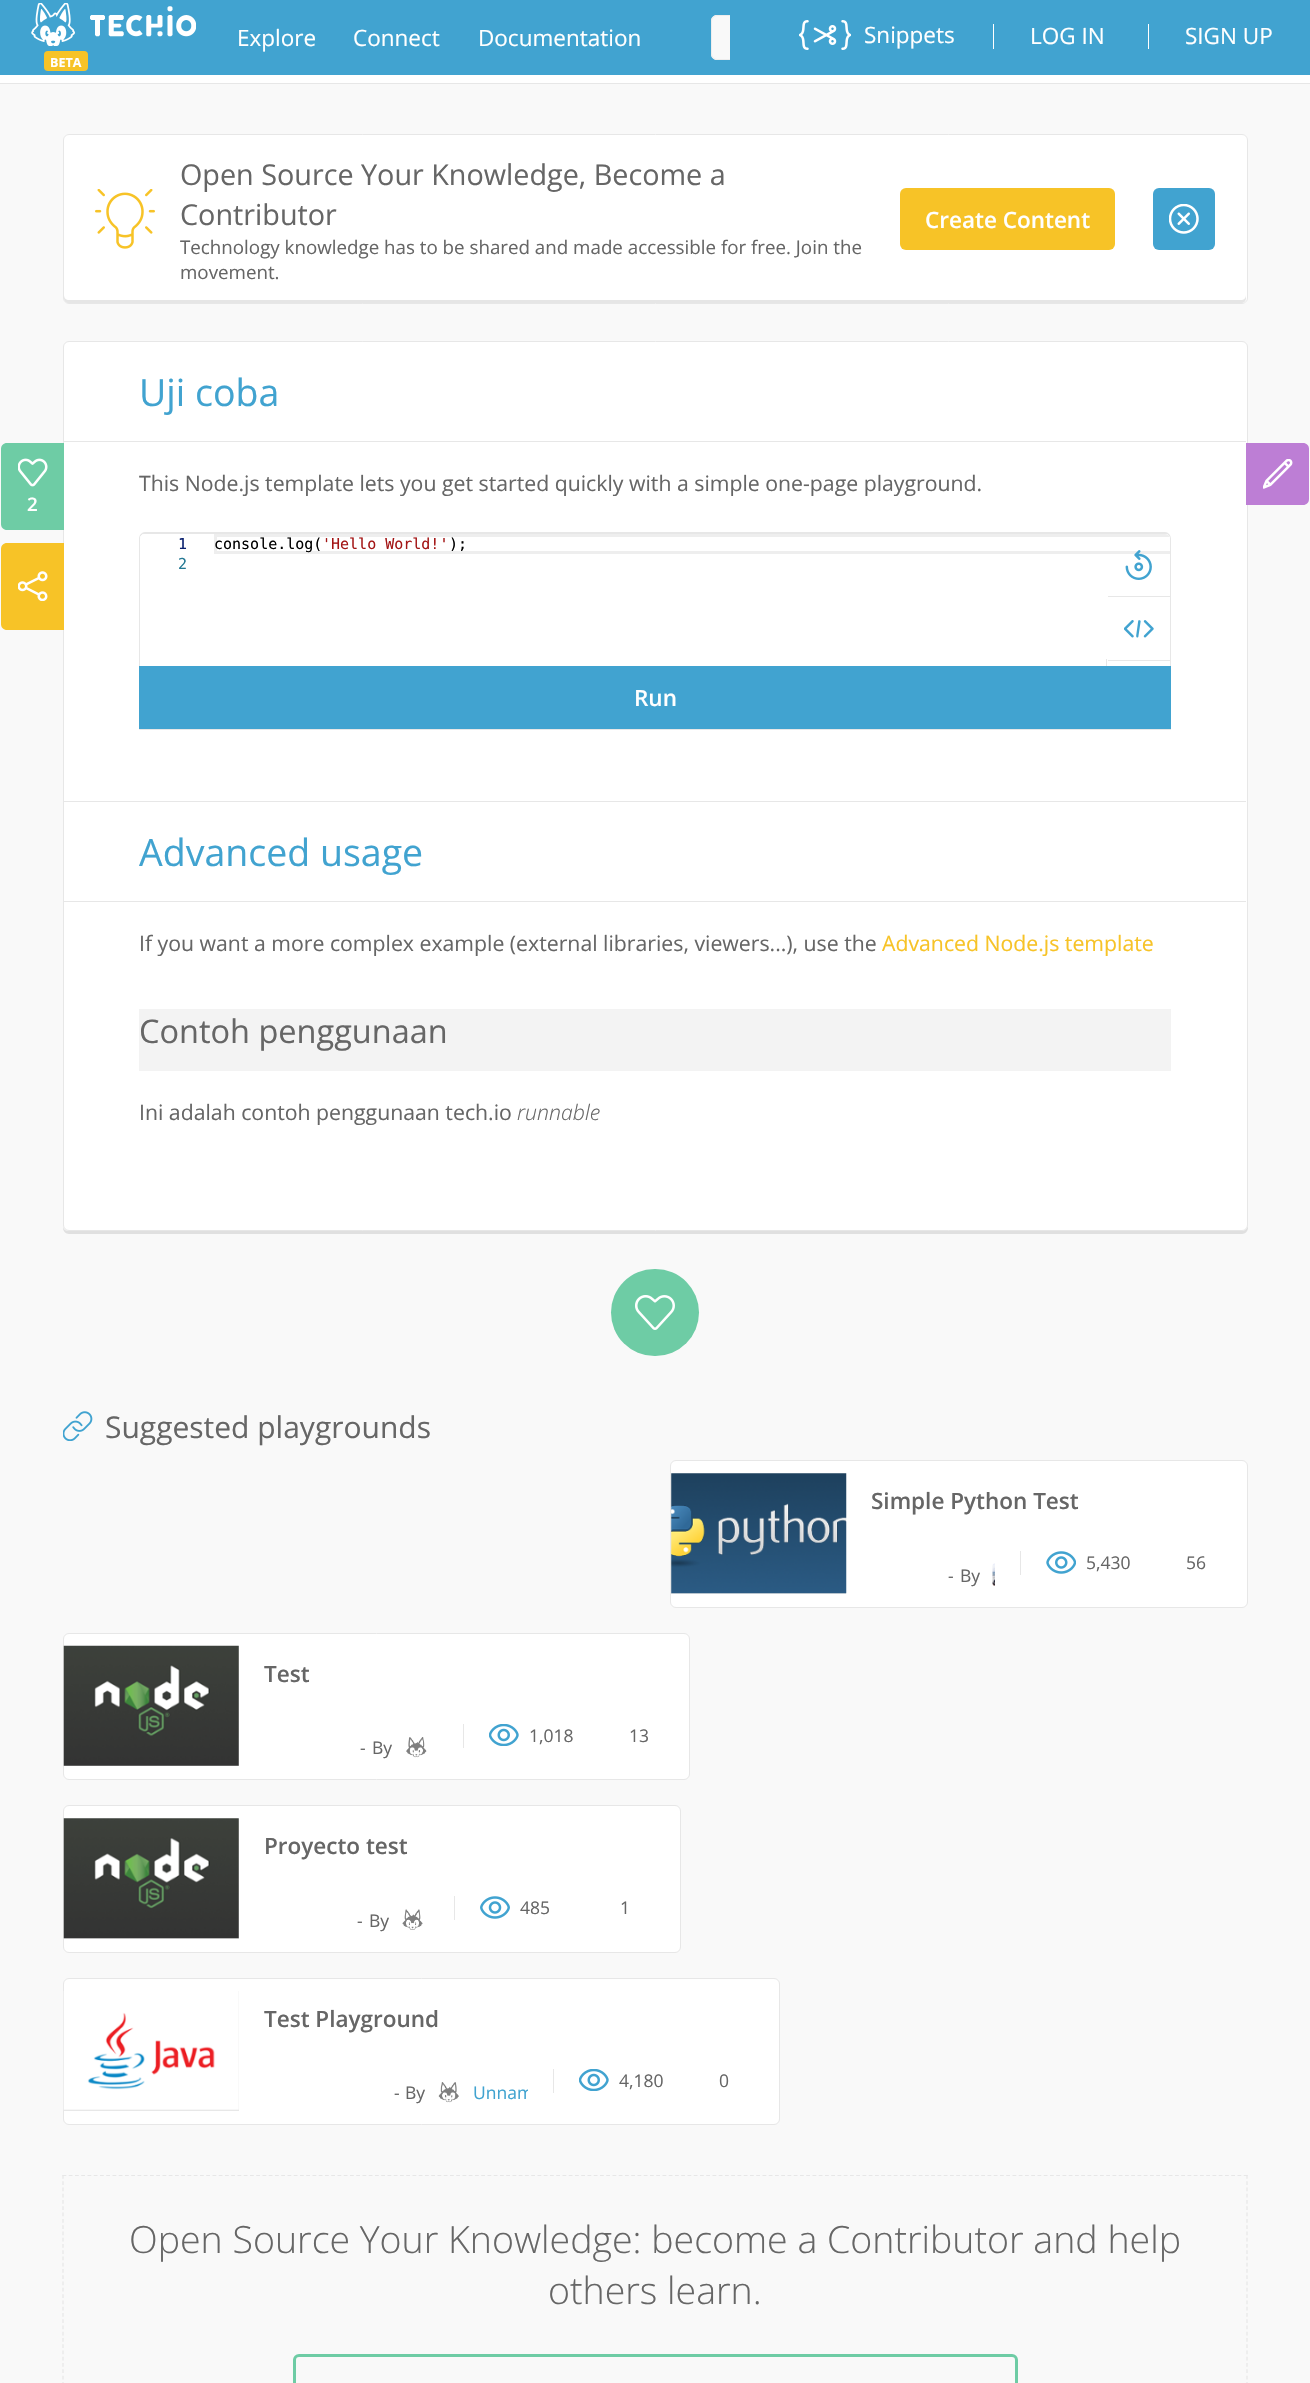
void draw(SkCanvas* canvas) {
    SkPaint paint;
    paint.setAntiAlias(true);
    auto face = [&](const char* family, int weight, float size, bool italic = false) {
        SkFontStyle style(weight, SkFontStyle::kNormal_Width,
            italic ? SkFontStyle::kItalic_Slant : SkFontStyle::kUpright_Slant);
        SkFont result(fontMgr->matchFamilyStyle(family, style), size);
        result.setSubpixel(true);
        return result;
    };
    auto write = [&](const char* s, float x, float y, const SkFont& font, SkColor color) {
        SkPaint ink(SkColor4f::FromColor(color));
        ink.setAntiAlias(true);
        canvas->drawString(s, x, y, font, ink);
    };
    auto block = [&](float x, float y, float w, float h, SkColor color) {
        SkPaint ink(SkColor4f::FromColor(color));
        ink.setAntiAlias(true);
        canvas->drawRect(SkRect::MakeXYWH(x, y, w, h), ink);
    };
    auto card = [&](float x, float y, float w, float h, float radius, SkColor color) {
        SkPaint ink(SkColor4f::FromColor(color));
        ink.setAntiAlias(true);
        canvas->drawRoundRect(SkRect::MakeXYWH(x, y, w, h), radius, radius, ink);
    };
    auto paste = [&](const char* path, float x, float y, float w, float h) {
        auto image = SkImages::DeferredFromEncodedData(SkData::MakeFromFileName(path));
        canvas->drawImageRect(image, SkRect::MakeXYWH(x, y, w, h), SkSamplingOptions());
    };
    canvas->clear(SkColorSetRGB(249, 249, 249));
    block(0, 0, 1310, 75, SkColorSetRGB(65, 163, 208));
    auto kFont1 = face("Open Sans", 400, 22.5f);
    write("Explore", 237, 46, kFont1, SK_ColorWHITE);
    write("Connect", 353, 46, kFont1, SK_ColorWHITE);
    write("Documentation", 478, 46, kFont1, SK_ColorWHITE);
    paint.setColor(SkColorSetRGB(249, 249, 249));
    canvas->drawPath(SkPathBuilder().moveTo(717, 15).lineTo(730, 15).lineTo(730, 60).lineTo(717, 60).cubicTo(713.5f, 60, 711, 57.5f, 711, 54).lineTo(711, 21).cubicTo(711, 17.5f, 713.5f, 15, 717, 15).close().detach(), paint);
    canvas->save();
    canvas->clipRect(SkRect::MakeXYWH(693, 0, 37, 75));
    paint.setStyle(SkPaint::kStroke_Style);
    paint.setStrokeWidth(1);
    paint.setColor(SkColorSetRGB(237, 237, 237));
    canvas->drawRoundRect(SkRect::MakeXYWH(711.5f, 15.5f, 61, 44), 5.5f, 5.5f, paint);
    canvas->restore();
    paste("pic1.png", 799, 20, 52, 30);
    write("Snippets", 864, 43, kFont1, SK_ColorWHITE);
    block(993, 24, 1, 25, SK_ColorWHITE);
    write("LOG IN", 1030, 44, kFont1, SK_ColorWHITE);
    block(1148, 24, 1, 25, SK_ColorWHITE);
    write("SIGN UP", 1185, 44, kFont1, SK_ColorWHITE);
    paste("pic2.png", 31, 3, 165, 43);
    card(44, 51, 44, 20, 4, SkColorSetRGB(247, 195, 39));
    auto kFont2 = face("Open Sans", 700, 12.5f);
    write("BETA", 50, 67, kFont2, SK_ColorWHITE);
    block(0, 75, 1310, 8, SK_ColorWHITE);
    block(0, 83, 1310, 1, SkColorSetRGB(231, 231, 231));
    card(63, 134, 1185, 170, 6, SK_ColorWHITE);
    paint.setStyle(SkPaint::kFill_Style);
    paint.setColor(SkColorSetRGB(230, 230, 230));
    canvas->drawPath(SkPathBuilder().moveTo(64, 295).lineTo(64, 298).cubicTo(64, 301, 66, 303, 69, 303).lineTo(1241, 303).cubicTo(1244, 303, 1246, 301, 1246, 298).lineTo(1246, 295).cubicTo(1246, 298, 1244, 300, 1241, 300).lineTo(69, 300).cubicTo(66, 300, 64, 298, 64, 295).close().detach(), paint);
    paint.setStyle(SkPaint::kStroke_Style);
    paint.setColor(SkColorSetRGB(231, 231, 231));
    canvas->drawRoundRect(SkRect::MakeXYWH(63.5f, 134.5f, 1184, 169), 5.5f, 5.5f, paint);
    paste("pic3.png", 95, 189, 60, 60);
    auto kFont3 = face("Open Sans", 400, 28.75f);
    write("Open Source Your Knowledge, Become a", 180, 185, kFont3, SkColorSetRGB(102, 102, 102));
    write("Contributor", 180, 225, kFont3, SkColorSetRGB(102, 102, 102));
    auto kFont4 = face("Open Sans", 400, 18.75f);
    write("Technology knowledge has to be shared and made accessible for free. Join the", 180, 254, kFont4, SkColorSetRGB(102, 102, 102));
    write("movement.", 180, 279, kFont4, SkColorSetRGB(102, 102, 102));
    card(900, 188, 215, 62, 6, SkColorSetRGB(247, 195, 39));
    auto kFont5 = face("Open Sans", 600, 22.5f);
    write("Create Content", 925, 228, kFont5, SK_ColorWHITE);
    card(1153, 188, 62, 62, 6, SkColorSetRGB(65, 163, 208));
    paste("pic4.png", 1169, 204, 30, 30);
    paint.setStyle(SkPaint::kFill_Style);
    paint.setColor(SkColorSetRGB(224, 224, 224));
    canvas->drawPath(SkPathBuilder().moveTo(63, 1227).lineTo(63, 1228).cubicTo(63, 1231, 66, 1234, 69, 1234).lineTo(1242, 1234).cubicTo(1245, 1234, 1248, 1231, 1248, 1228).lineTo(1248, 350).lineTo(1248, 348).lineTo(1248, 1225).cubicTo(1248, 1228, 1245, 1231, 1241, 1231).lineTo(69, 1231).cubicTo(66, 1231, 64, 1230, 63, 1227).close().detach(), paint);
    paint.setColor(SK_ColorWHITE);
    canvas->drawRoundRect(SkRect::MakeXYWH(63.5f, 341.5f, 1184, 889), 5.5f, 5.5f, paint);
    paint.setStyle(SkPaint::kStroke_Style);
    paint.setColor(SkColorSetRGB(231, 231, 231));
    canvas->drawRoundRect(SkRect::MakeXYWH(63.5f, 341.5f, 1184, 889), 5.5f, 5.5f, paint);
    paint.setStyle(SkPaint::kFill_Style);
    paint.setColor(SkColorSetRGB(110, 204, 165));
    canvas->drawPath(SkPathBuilder().moveTo(7, 443).lineTo(64, 443).lineTo(64, 530).lineTo(7, 530).cubicTo(3.5f, 530, 1, 527.5f, 1, 524).lineTo(1, 449).cubicTo(1, 445.5f, 3.5f, 443, 7, 443).close().detach(), paint);
    paste("pic5.png", 18, 458, 30, 29);
    auto kFont6 = face("Open Sans", 600, 18.75f);
    write("2", 27, 511, kFont6, SK_ColorWHITE);
    paint.setColor(SkColorSetRGB(247, 195, 39));
    canvas->drawPath(SkPathBuilder().moveTo(7, 543).lineTo(64, 543).lineTo(64, 630).lineTo(7, 630).cubicTo(3.5f, 630, 1, 627.5f, 1, 624).lineTo(1, 549).cubicTo(1, 545.5f, 3.5f, 543, 7, 543).close().detach(), paint);
    paste("pic6.png", 18, 571, 30, 30);
    block(64, 441, 1182, 1, SkColorSetRGB(231, 231, 231));
    auto kFont7 = face("Open Sans", 400, 37.5f);
    write("Uji coba", 139, 406, kFont7, SkColorSetRGB(65, 163, 208));
    auto kFont8 = face("Open Sans", 400, 21.25f);
    write("This Node.js template lets you get started quickly with a simple one-page playground.", 139, 491, kFont8, SkColorSetRGB(102, 102, 102));
    paint.setColor(SkColorSetRGB(231, 231, 231));
    canvas->drawPath(SkPathBuilder(SkPathFillType::kEvenOdd).moveTo(145, 532).lineTo(1165, 532).cubicTo(1168, 532, 1171, 535, 1171, 539).lineTo(1171, 666).lineTo(139, 666).lineTo(139, 539).cubicTo(139, 535, 142, 532, 145, 532).close().moveTo(145, 534).lineTo(1165, 534).cubicTo(1168, 534, 1170, 536, 1170, 539).lineTo(1170, 666).lineTo(140, 666).lineTo(140, 539).cubicTo(140, 536, 142, 534, 145, 534).close().detach(), paint);
    paint.setColor(SK_ColorWHITE);
    canvas->drawPath(SkPathBuilder().moveTo(145, 534).lineTo(1165, 534).cubicTo(1168, 534, 1170, 536, 1170, 539).lineTo(1170, 666).lineTo(140, 666).lineTo(140, 539).cubicTo(140, 536, 142, 534, 145, 534).close().detach(), paint);
    canvas->drawPath(SkPathBuilder().moveTo(145, 534).lineTo(214, 534).lineTo(214, 659).lineTo(140, 659).lineTo(140, 539).cubicTo(140, 536, 142, 534, 145, 534).close().detach(), paint);
    auto kFont9 = face("DejaVu Sans Mono", 400, 15);
    write("1", 178, 549, kFont9, SkColorSetRGB(11, 33, 111));
    write("2", 178, 569, kFont9, SkColorSetRGB(35, 120, 147));
    canvas->drawPath(SkPathBuilder().moveTo(1108, 534).lineTo(1165, 534).cubicTo(1168, 534, 1170, 536, 1170, 539).lineTo(1170, 666).lineTo(1108, 666).close().detach(), paint);
    paint.setColor(SkColorSetRGB(238, 238, 238));
    canvas->drawPath(SkPathBuilder().moveTo(214, 534).lineTo(214, 554).lineTo(1170, 554).lineTo(1170, 551).lineTo(217, 551).lineTo(217, 537).lineTo(1170, 537).cubicTo(1169, 535, 1167, 534, 1165, 534).close().detach(), paint);
    write("console.log(", 214, 549, kFont9, SK_ColorBLACK);
    write("'Hello World!'", 322, 549, kFont9, SkColorSetRGB(163, 21, 21));
    write(");", 449, 549, kFont9, SK_ColorBLACK);
    block(1106, 659, 1, 7, SkColorSetRGB(231, 231, 231));
    paste("pic7.png", 1125, 550, 27, 30);
    block(1108, 596, 62, 1, SkColorSetRGB(231, 231, 231));
    block(1108, 660, 62, 1, SkColorSetRGB(231, 231, 231));
    paste("pic8.png", 1124, 620, 30, 18);
    block(139, 666, 1032, 63, SkColorSetRGB(65, 163, 208));
    write("Run", 634, 706, kFont5, SK_ColorWHITE);
    block(140, 729, 1031, 1, SkColorSetRGB(231, 231, 231));
    paint.setColor(SkColorSetRGB(231, 231, 231));
    canvas->drawCircle(139.5f, 729.5f, 0.5f, paint);
    block(64, 801, 1182, 1, SkColorSetRGB(231, 231, 231));
    block(64, 901, 1182, 1, SkColorSetRGB(231, 231, 231));
    write("Advanced usage", 139, 866, kFont7, SkColorSetRGB(65, 163, 208));
    write("If you want a more complex example (external libraries, viewers...), use the", 139, 951, kFont8, SkColorSetRGB(102, 102, 102));
    write("Advanced Node.js template", 882, 951, kFont8, SkColorSetRGB(247, 195, 39));
    block(139, 1009, 1032, 62, SkColorSetRGB(243, 243, 243));
    auto kFont10 = face("Open Sans", 400, 32.5f);
    write("Contoh penggunaan", 139, 1043, kFont10, SkColorSetRGB(102, 102, 102));
    write("Ini adalah contoh penggunaan tech.io", 139, 1120, kFont8, SkColorSetRGB(102, 102, 102));
    auto kFont11 = face("Open Sans", 300, 21.25f, true);
    write("runnable", 517, 1120, kFont11, SkColorSetRGB(102, 102, 102));
    paint.setColor(SkColorSetRGB(189, 126, 213));
    canvas->drawPath(SkPathBuilder().moveTo(1246, 443).lineTo(1303, 443).cubicTo(1306.5f, 443, 1309, 445.5f, 1309, 449).lineTo(1309, 499).cubicTo(1309, 502.5f, 1306.5f, 505, 1303, 505).lineTo(1246, 505).close().detach(), paint);
    paste("pic9.png", 1263, 459, 30, 30);
    card(611, 1269, 88, 87, 43.5f, SkColorSetRGB(110, 204, 165));
    paste("pic10.png", 635, 1295, 40, 35);
    paste("pic11.png", 63, 1411, 30, 30);
    auto kFont12 = face("Open Sans", 400, 30);
    write("Suggested playgrounds", 105, 1438, kFont12, SkColorSetRGB(102, 102, 102));
    paint.setColor(SK_ColorWHITE);
    canvas->drawRoundRect(SkRect::MakeXYWH(670.5f, 1460.5f, 577, 147), 5.5f, 5.5f, paint);
    paint.setStyle(SkPaint::kStroke_Style);
    paint.setColor(SkColorSetRGB(231, 231, 231));
    canvas->drawRoundRect(SkRect::MakeXYWH(670.5f, 1460.5f, 577, 147), 5.5f, 5.5f, paint);
    block(671, 1474, 175, 120, SkColorSetRGB(231, 231, 231));
    paste("pic12.png", 671, 1473, 176, 121);
    write("Simple Python Test", 871, 1509, kFont5, SkColorSetRGB(102, 102, 102));
    block(1020, 1551, 1, 24, SkColorSetRGB(231, 231, 231));
    paste("pic13.png", 1046, 1551, 30, 23);
    auto kFont13 = face("Open Sans", 400, 17.5f);
    write("5,430", 1086, 1569, kFont13, SkColorSetRGB(102, 102, 102));
    write("56", 1186, 1569, kFont13, SkColorSetRGB(102, 102, 102));
    write("-", 948, 1582, kFont13, SkColorSetRGB(102, 102, 102));
    write("By", 960, 1582, kFont13, SkColorSetRGB(102, 102, 102));
    paste("pic14.png", 992, 1563, 3, 23);
    paint.setStyle(SkPaint::kFill_Style);
    paint.setColor(SK_ColorWHITE);
    canvas->drawRoundRect(SkRect::MakeXYWH(63.5f, 1633.5f, 626, 146), 5.5f, 5.5f, paint);
    paint.setStyle(SkPaint::kStroke_Style);
    paint.setColor(SkColorSetRGB(231, 231, 231));
    canvas->drawRoundRect(SkRect::MakeXYWH(63.5f, 1633.5f, 626, 146), 5.5f, 5.5f, paint);
    block(64, 1646, 175, 120, SkColorSetRGB(231, 231, 231));
    paste("pic15.png", 63, 1645, 176, 121);
    write("Test", 264, 1682, kFont5, SkColorSetRGB(102, 102, 102));
    block(463, 1724, 1, 24, SkColorSetRGB(231, 231, 231));
    paste("pic16.png", 489, 1724, 30, 22);
    write("1,018", 529, 1742, kFont13, SkColorSetRGB(102, 102, 102));
    write("13", 629, 1742, kFont13, SkColorSetRGB(102, 102, 102));
    write("-", 360, 1754, kFont13, SkColorSetRGB(102, 102, 102));
    write("By", 372, 1754, kFont13, SkColorSetRGB(102, 102, 102));
    paste("pic17.png", 406, 1737, 21, 21);
    paint.setStyle(SkPaint::kFill_Style);
    paint.setColor(SK_ColorWHITE);
    canvas->drawRoundRect(SkRect::MakeXYWH(63.5f, 1805.5f, 617, 147), 5.5f, 5.5f, paint);
    paint.setStyle(SkPaint::kStroke_Style);
    paint.setColor(SkColorSetRGB(231, 231, 231));
    canvas->drawRoundRect(SkRect::MakeXYWH(63.5f, 1805.5f, 617, 147), 5.5f, 5.5f, paint);
    block(64, 1819, 175, 120, SkColorSetRGB(231, 231, 231));
    paste("pic18.png", 63, 1818, 176, 121);
    write("Proyecto test", 264, 1854, kFont5, SkColorSetRGB(102, 102, 102));
    block(454, 1896, 1, 24, SkColorSetRGB(231, 231, 231));
    paste("pic19.png", 480, 1896, 30, 23);
    write("485", 520, 1914, kFont13, SkColorSetRGB(102, 102, 102));
    write("1", 620, 1914, kFont13, SkColorSetRGB(102, 102, 102));
    write("-", 357, 1927, kFont13, SkColorSetRGB(102, 102, 102));
    write("By", 369, 1927, kFont13, SkColorSetRGB(102, 102, 102));
    paste("pic20.png", 402, 1909, 21, 21);
    paint.setStyle(SkPaint::kFill_Style);
    paint.setColor(SK_ColorWHITE);
    canvas->drawRoundRect(SkRect::MakeXYWH(63.5f, 1978.5f, 716, 146), 5.5f, 5.5f, paint);
    paint.setStyle(SkPaint::kStroke_Style);
    paint.setColor(SkColorSetRGB(231, 231, 231));
    canvas->drawRoundRect(SkRect::MakeXYWH(63.5f, 1978.5f, 716, 146), 5.5f, 5.5f, paint);
    block(64, 1991, 175, 120, SkColorSetRGB(231, 231, 231));
    paste("pic21.png", 63, 1991, 176, 119);
    write("Test Playground", 264, 2027, kFont5, SkColorSetRGB(102, 102, 102));
    block(553, 2069, 1, 24, SkColorSetRGB(231, 231, 231));
    paste("pic16.png", 579, 2069, 30, 22);
    write("4,180", 619, 2087, kFont13, SkColorSetRGB(102, 102, 102));
    write("0", 719, 2087, kFont13, SkColorSetRGB(102, 102, 102));
    write("-", 394, 2099, kFont13, SkColorSetRGB(102, 102, 102));
    write("By", 405, 2099, kFont13, SkColorSetRGB(102, 102, 102));
    paste("pic22.png", 438, 2082, 21, 21);
    canvas->save();
    canvas->clipRect(SkRect::MakeXYWH(473, 2081, 55, 24));
    write("Unnam", 473, 2099, kFont13, SkColorSetRGB(65, 163, 208));
    canvas->restore();
    paint.setStrokeWidth(1.2f);
    paint.setPathEffect(SkDashPathEffect::Make({{3.75f, 2.5f}}, 0));
    canvas->drawPath(SkPathBuilder().moveTo(62.5f, 2175.5f).lineTo(1247.5f, 2175.5f).detach(), paint);
    paint.setPathEffect(nullptr);
    paint.setPathEffect(SkDashPathEffect::Make({{3.75f, 2.52f}}, 0));
    canvas->drawPath(SkPathBuilder().moveTo(1247, 2175).lineTo(1247, 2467.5f).detach(), paint);
    paint.setPathEffect(nullptr);
    paint.setPathEffect(SkDashPathEffect::Make({{3.75f, 2.52f}}, 0));
    canvas->drawPath(SkPathBuilder().moveTo(63, 2175).lineTo(63, 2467.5f).detach(), paint);
    paint.setPathEffect(nullptr);
    auto kFont14 = face("Open Sans", 300, 37.5f);
    write("Open Source Your Knowledge: become a Contributor and help", 129, 2253, kFont14, SkColorSetRGB(102, 102, 102));
    write("others learn.", 548, 2304, kFont14, SkColorSetRGB(102, 102, 102));
    paint.setStrokeWidth(3);
    paint.setColor(SkColorSetRGB(110, 204, 165));
    canvas->drawRoundRect(SkRect::MakeXYWH(294.5f, 2355.5f, 722, 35), 4.5f, 4.5f, paint);
}
